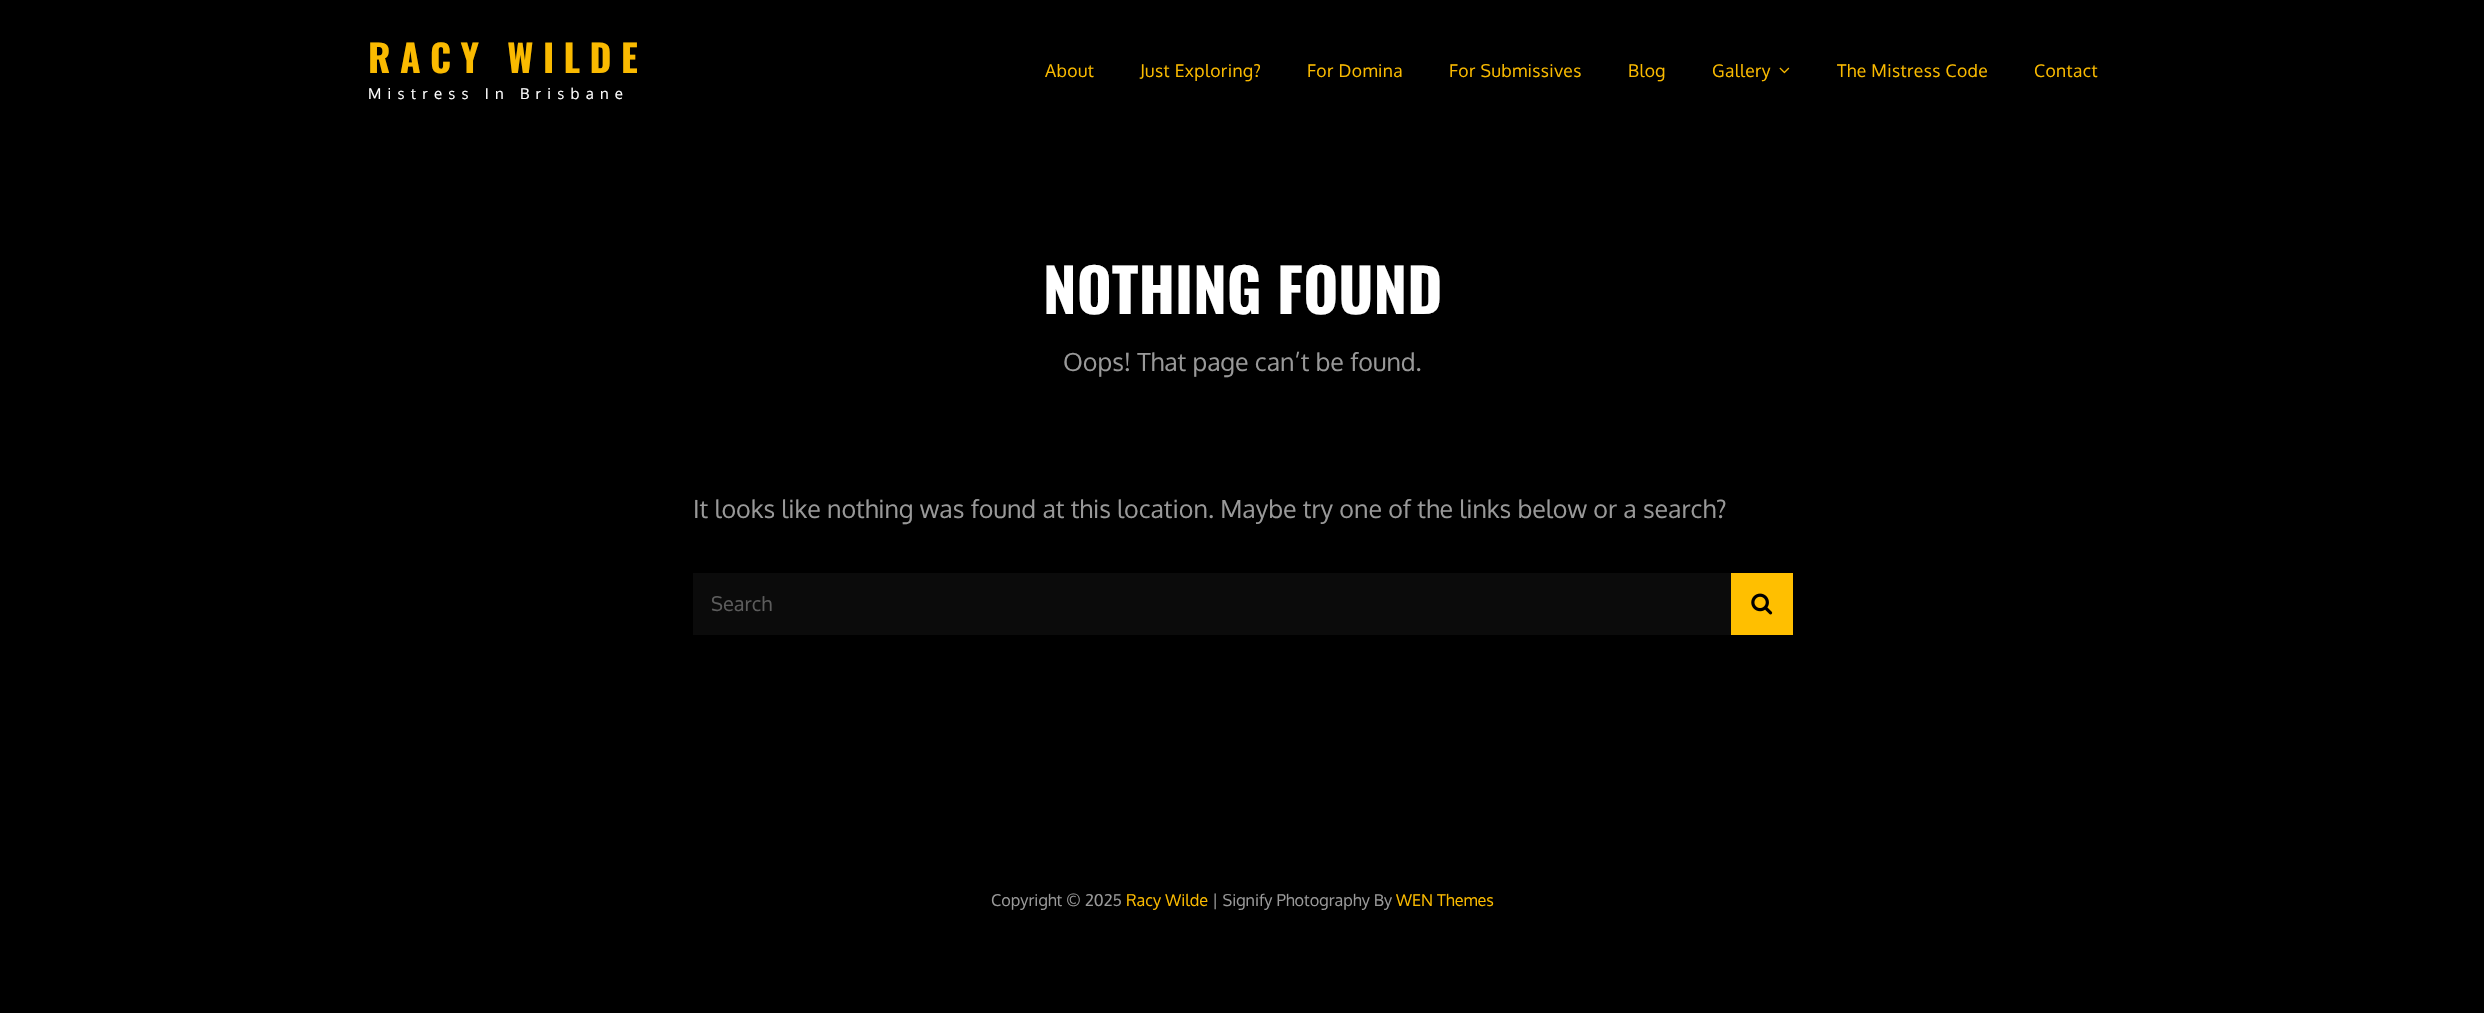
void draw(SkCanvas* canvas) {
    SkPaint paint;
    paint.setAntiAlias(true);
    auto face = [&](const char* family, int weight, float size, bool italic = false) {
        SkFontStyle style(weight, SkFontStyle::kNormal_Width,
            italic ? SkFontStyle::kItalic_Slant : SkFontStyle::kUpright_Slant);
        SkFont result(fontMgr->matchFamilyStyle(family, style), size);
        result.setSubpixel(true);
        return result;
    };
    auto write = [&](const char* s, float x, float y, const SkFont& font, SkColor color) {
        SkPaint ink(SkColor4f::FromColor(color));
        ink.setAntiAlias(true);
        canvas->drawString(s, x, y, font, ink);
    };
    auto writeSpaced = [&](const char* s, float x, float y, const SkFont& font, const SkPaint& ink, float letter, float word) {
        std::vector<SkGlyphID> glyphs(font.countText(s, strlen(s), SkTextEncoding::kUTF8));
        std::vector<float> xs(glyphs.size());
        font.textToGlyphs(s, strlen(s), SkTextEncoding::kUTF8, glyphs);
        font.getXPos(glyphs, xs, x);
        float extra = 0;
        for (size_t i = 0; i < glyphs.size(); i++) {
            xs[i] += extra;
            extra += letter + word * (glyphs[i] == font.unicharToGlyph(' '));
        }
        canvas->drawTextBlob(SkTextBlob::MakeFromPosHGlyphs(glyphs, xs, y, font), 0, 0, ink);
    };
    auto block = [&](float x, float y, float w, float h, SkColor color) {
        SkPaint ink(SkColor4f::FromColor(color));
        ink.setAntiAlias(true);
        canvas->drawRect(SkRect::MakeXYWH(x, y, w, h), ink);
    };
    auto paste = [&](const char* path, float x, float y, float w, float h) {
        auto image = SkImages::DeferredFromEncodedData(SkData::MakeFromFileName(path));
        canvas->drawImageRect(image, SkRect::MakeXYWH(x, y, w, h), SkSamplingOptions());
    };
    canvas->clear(SK_ColorBLACK);
    auto kFont1 = face("Oswald", 700, 37.5f);
    paint.setColor(SkColorSetRGB(250, 186, 0));
    writeSpaced("RACY WILDE", 368, 73, kFont1, paint, 9.4f, 0);
    auto kFont2 = face("Oxygen", 400, 15);
    paint.setColor(SK_ColorWHITE);
    writeSpaced("Mistress In Brisbane", 368, 99, kFont2, paint, 6.25f, 0);
    auto kFont3 = face("Oxygen", 400, 17.5f);
    paint.setColor(SkColorSetRGB(250, 186, 0));
    writeSpaced("About", 1045, 77, kFont3, paint, 0.4f, 0);
    writeSpaced("Just Exploring?", 1140, 77, kFont3, paint, 0.4f, 0);
    writeSpaced("For Domina", 1307, 77, kFont3, paint, 0.4f, 0);
    writeSpaced("For Submissives", 1449, 77, kFont3, paint, 0.4f, 0);
    writeSpaced("Blog", 1628, 77, kFont3, paint, 0.4f, 0);
    writeSpaced("Gallery", 1712, 77, kFont3, paint, 0.4f, 0);
    paste("pic1.png", 1779, 67, 11, 7);
    writeSpaced("The Mistress Code", 1837, 77, kFont3, paint, 0.4f, 0);
    writeSpaced("Contact", 2034, 77, kFont3, paint, 0.4f, 0);
    auto kFont4 = face("Oswald", 700, 60);
    write("NOTHING FOUND", 1043, 314, kFont4, SK_ColorWHITE);
    auto kFont5 = face("Oxygen", 400, 25);
    write("Oops! That page can’t be found.", 1063, 371, kFont5, SkColorSetRGB(153, 153, 153));
    write("It looks like nothing was found at this location. Maybe try one of the links below or a search?", 693, 518, kFont5, SkColorSetRGB(153, 153, 153));
    block(693, 573, 1038, 62, SkColorSetRGB(11, 11, 11));
    auto kFont6 = face("Oxygen", 400, 20);
    write("Search", 711, 611, kFont6, SkColorSetRGB(92, 92, 92));
    block(1731, 573, 62, 62, SkColorSetRGB(255, 191, 0));
    paste("pic2.png", 1751, 593, 22, 22);
    auto kFont7 = face("Oxygen", 400, 16.25f);
    write("Copyright © 2025", 991, 906, kFont7, SkColorSetRGB(153, 153, 153));
    write("Racy Wilde", 1126, 906, kFont7, SkColorSetRGB(250, 186, 0));
    write("| Signify Photography By", 1212, 906, kFont7, SkColorSetRGB(153, 153, 153));
    write("WEN Themes", 1396, 906, kFont7, SkColorSetRGB(250, 186, 0));
}
